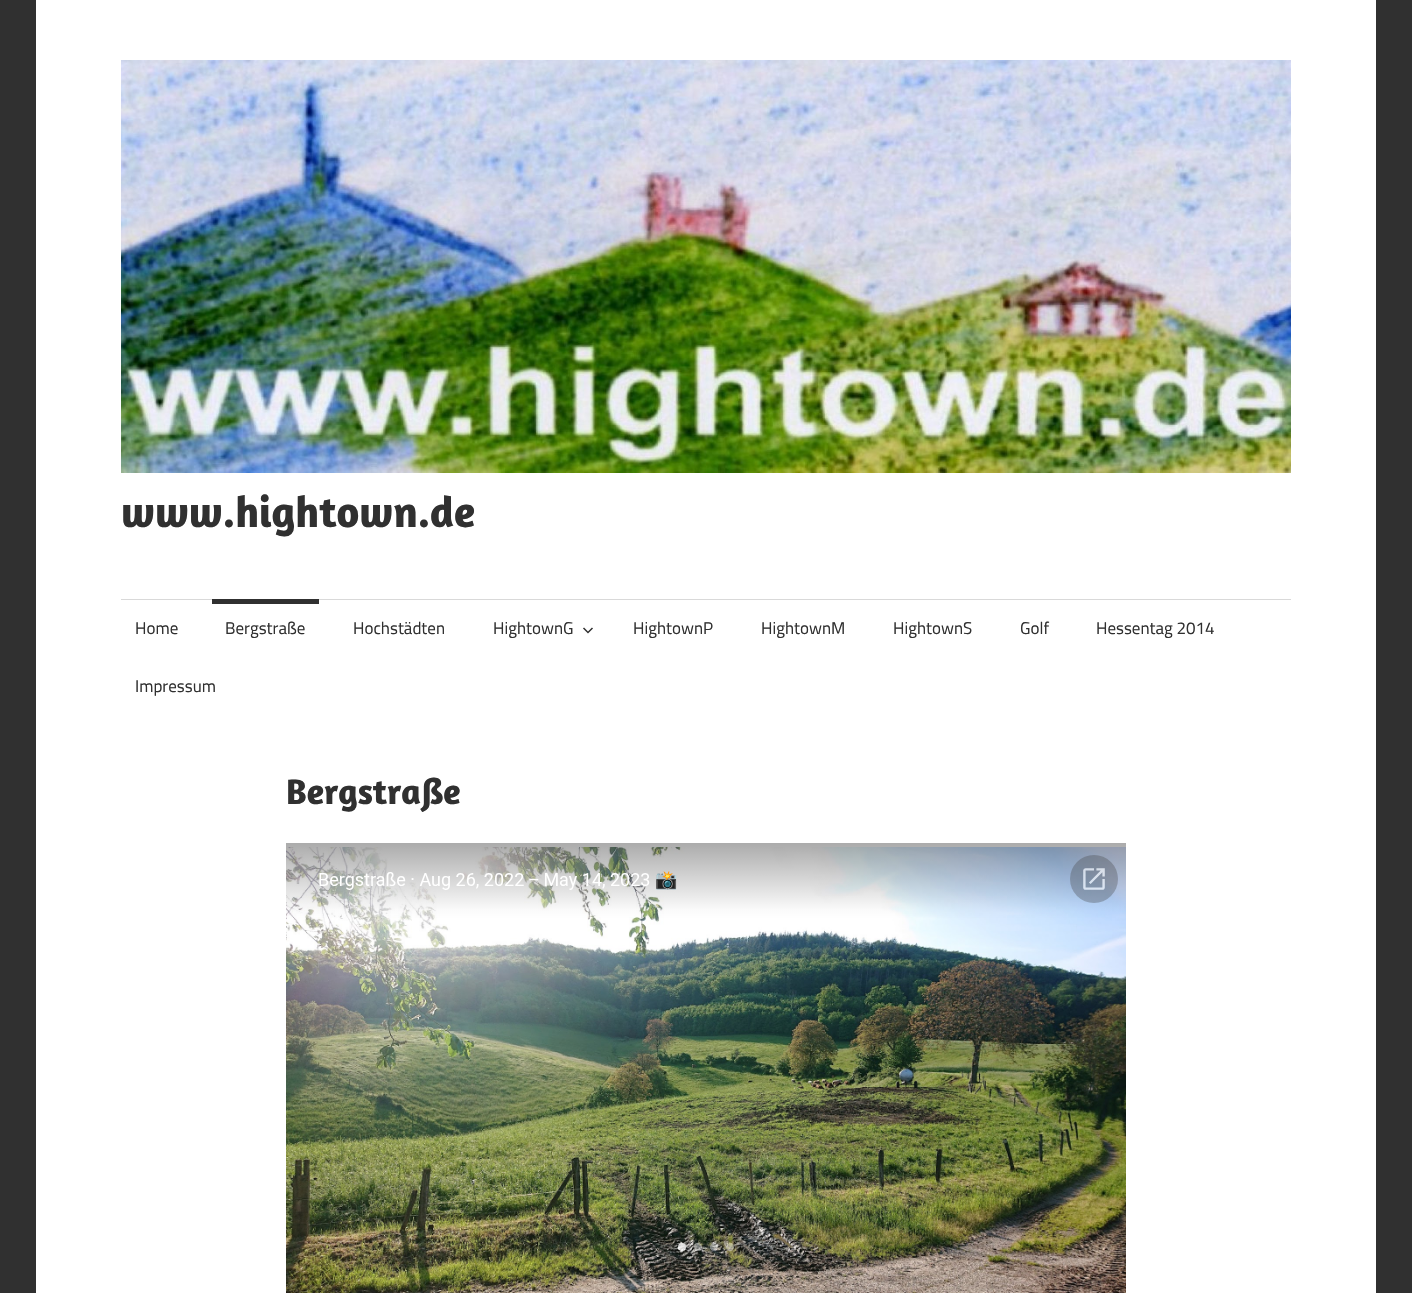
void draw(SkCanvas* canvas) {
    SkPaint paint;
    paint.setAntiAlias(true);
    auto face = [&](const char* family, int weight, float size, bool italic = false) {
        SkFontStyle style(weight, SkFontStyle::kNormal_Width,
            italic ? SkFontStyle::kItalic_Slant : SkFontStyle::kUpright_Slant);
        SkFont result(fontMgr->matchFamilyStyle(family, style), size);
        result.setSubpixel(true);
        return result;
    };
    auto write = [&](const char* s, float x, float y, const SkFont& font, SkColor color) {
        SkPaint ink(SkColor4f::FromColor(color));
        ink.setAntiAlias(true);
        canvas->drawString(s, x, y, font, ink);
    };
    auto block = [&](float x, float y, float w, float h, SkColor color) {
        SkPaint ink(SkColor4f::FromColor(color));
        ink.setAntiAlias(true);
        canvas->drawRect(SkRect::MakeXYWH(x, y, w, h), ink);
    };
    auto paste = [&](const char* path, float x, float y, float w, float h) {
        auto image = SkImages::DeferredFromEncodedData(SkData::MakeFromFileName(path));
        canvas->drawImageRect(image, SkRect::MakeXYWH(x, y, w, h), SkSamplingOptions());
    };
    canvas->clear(SkColorSetRGB(48, 48, 48));
    block(36, 0, 1340, 1293, SK_ColorWHITE);
    paste("pic1.png", 121, 60, 1170, 413);
    auto kFont1 = face("Amaranth", 700, 44);
    write("www.hightown.de", 121, 527, kFont1, SkColorSetRGB(48, 48, 48));
    block(121, 599, 1170, 1, SkColorSetRGB(217, 217, 217));
    auto kFont2 = face("Titillium Web", 400, 17);
    write("Home", 135, 634, kFont2, SkColorSetRGB(48, 48, 48));
    block(212, 599, 107, 5, SkColorSetRGB(48, 48, 48));
    write("Bergstraße", 225, 634, kFont2, SkColorSetRGB(48, 48, 48));
    write("Hochstädten", 353, 634, kFont2, SkColorSetRGB(48, 48, 48));
    write("HightownG", 493, 634, kFont2, SkColorSetRGB(48, 48, 48));
    paste("pic2.png", 583, 627, 10, 7);
    write("HightownP", 633, 634, kFont2, SkColorSetRGB(48, 48, 48));
    write("HightownM", 761, 634, kFont2, SkColorSetRGB(48, 48, 48));
    write("HightownS", 893, 634, kFont2, SkColorSetRGB(48, 48, 48));
    write("Golf", 1020, 634, kFont2, SkColorSetRGB(48, 48, 48));
    write("Hessentag 2014", 1096, 634, kFont2, SkColorSetRGB(48, 48, 48));
    write("Impressum", 135, 692, kFont2, SkColorSetRGB(48, 48, 48));
    auto kFont3 = face("Amaranth", 700, 36);
    write("Bergstraße", 286, 804, kFont3, SkColorSetRGB(48, 48, 48));
    paste("pic3.png", 286, 843, 840, 450);
}
